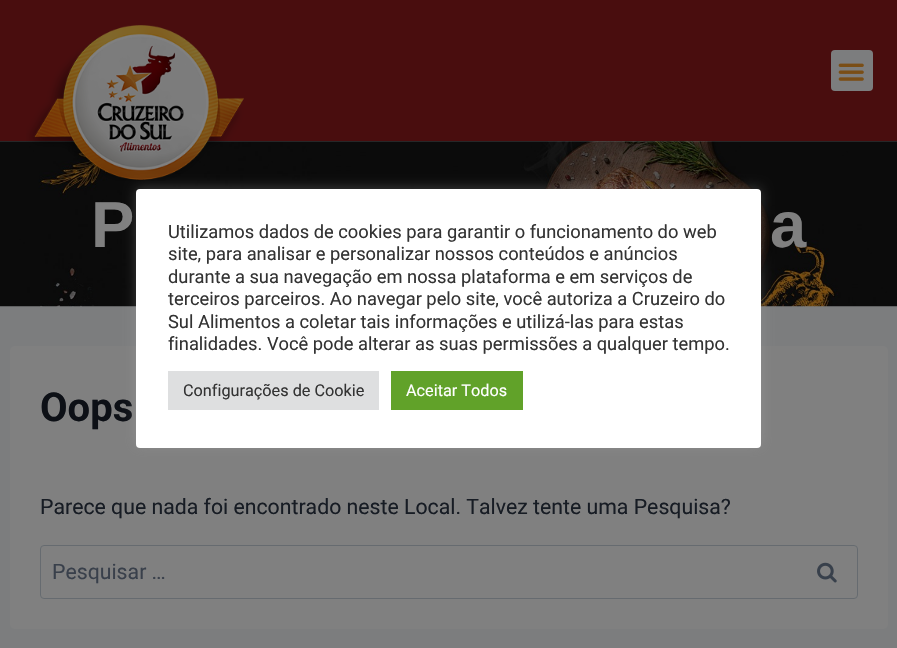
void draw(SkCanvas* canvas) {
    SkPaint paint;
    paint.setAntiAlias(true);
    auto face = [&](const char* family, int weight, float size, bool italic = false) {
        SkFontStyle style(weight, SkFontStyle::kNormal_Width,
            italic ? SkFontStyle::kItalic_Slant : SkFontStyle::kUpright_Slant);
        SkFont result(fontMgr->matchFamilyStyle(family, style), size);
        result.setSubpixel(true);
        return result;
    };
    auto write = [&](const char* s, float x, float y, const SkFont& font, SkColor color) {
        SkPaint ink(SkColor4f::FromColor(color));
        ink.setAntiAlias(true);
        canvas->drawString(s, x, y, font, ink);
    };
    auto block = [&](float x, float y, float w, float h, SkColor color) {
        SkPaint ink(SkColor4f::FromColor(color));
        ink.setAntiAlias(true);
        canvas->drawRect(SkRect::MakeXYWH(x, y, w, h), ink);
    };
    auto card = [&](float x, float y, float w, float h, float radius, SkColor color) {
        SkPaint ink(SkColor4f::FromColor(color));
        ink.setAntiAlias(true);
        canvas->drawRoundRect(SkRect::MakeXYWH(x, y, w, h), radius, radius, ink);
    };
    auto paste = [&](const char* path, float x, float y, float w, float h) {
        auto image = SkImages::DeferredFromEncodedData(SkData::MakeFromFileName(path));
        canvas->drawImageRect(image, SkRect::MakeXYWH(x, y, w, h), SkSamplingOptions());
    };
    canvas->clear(SkColorSetRGB(124, 125, 126));
    block(0, 0, 897, 141, SkColorSetRGB(73, 13, 14));
    paste("pic3.png", 0, 141, 897, 166);
    paste("pic1.png", 26, 25, 218, 156);
    card(831, 50, 42, 41, 4, SkColorSetRGB(124, 125, 126));
    paste("pic2.png", 838, 63, 26, 18);
    auto kFont1 = face("Liberation Sans", 700, 65);
    write("P", 91, 247, kFont1, SkColorSetRGB(128, 128, 128));
    write("a", 770, 247, kFont1, SkColorSetRGB(128, 128, 128));
    card(10, 346, 878, 283, 5, SkColorSetRGB(128, 128, 128));
    auto kFont2 = face("Roboto", 700, 40);
    write("Oops", 40, 421, kFont2, SkColorSetRGB(13, 16, 22));
    auto kFont3 = face("Roboto", 400, 21.25f);
    write("Parece que nada foi encontrado neste Local. Talvez tente uma Pesquisa?", 40, 514, kFont3, SkColorSetRGB(23, 28, 36));
    paint.setStyle(SkPaint::kStroke_Style);
    paint.setStrokeWidth(1);
    paint.setColor(SkColorSetRGB(102, 107, 112));
    canvas->drawRoundRect(SkRect::MakeXYWH(40.5f, 545.5f, 817, 53), 3.5f, 3.5f, paint);
    write("Pesquisar …", 52, 579, kFont3, SkColorSetRGB(57, 64, 75));
    paste("pic4.png", 817, 562, 20, 21);
    paint.setStyle(SkPaint::kFill_Style);
    paint.setColor(SkColorSetARGB(77, 172, 171, 171));
    paint.setMaskFilter(SkMaskFilter::MakeBlur(kNormal_SkBlurStyle, 6));
    canvas->drawRoundRect(SkRect::MakeXYWH(136, 188, 625, 258), 4, 4, paint);
    paint.setMaskFilter(nullptr);
    card(136, 189, 625, 259, 4, SK_ColorWHITE);
    auto kFont4 = face("Roboto", 400, 18.3f);
    write("Utilizamos dados de cookies para garantir o funcionamento do web", 168, 238, kFont4, SkColorSetRGB(51, 51, 51));
    write("site, para analisar e personalizar nossos conteúdos e anúncios", 168, 260, kFont4, SkColorSetRGB(51, 51, 51));
    write("durante a sua navegação em nossa plataforma e em serviços de", 168, 283, kFont4, SkColorSetRGB(51, 51, 51));
    write("terceiros parceiros. Ao navegar pelo site, você autoriza a Cruzeiro do", 168, 305, kFont4, SkColorSetRGB(51, 51, 51));
    write("Sul Alimentos a coletar tais informações e utilizá-las para estas", 168, 328, kFont4, SkColorSetRGB(51, 51, 51));
    write("finalidades. Você pode alterar as suas permissões a qualquer tempo.", 168, 350, kFont4, SkColorSetRGB(51, 51, 51));
    block(168, 371, 211, 39, SkColorSetRGB(222, 223, 224));
    auto kFont5 = face("Roboto", 400, 16.25f);
    write("Configurações de Cookie", 183, 396, kFont5, SkColorSetRGB(51, 51, 51));
    block(391, 371, 132, 39, SkColorSetRGB(97, 162, 41));
    write("Aceitar Todos", 406, 396, kFont5, SK_ColorWHITE);
}
